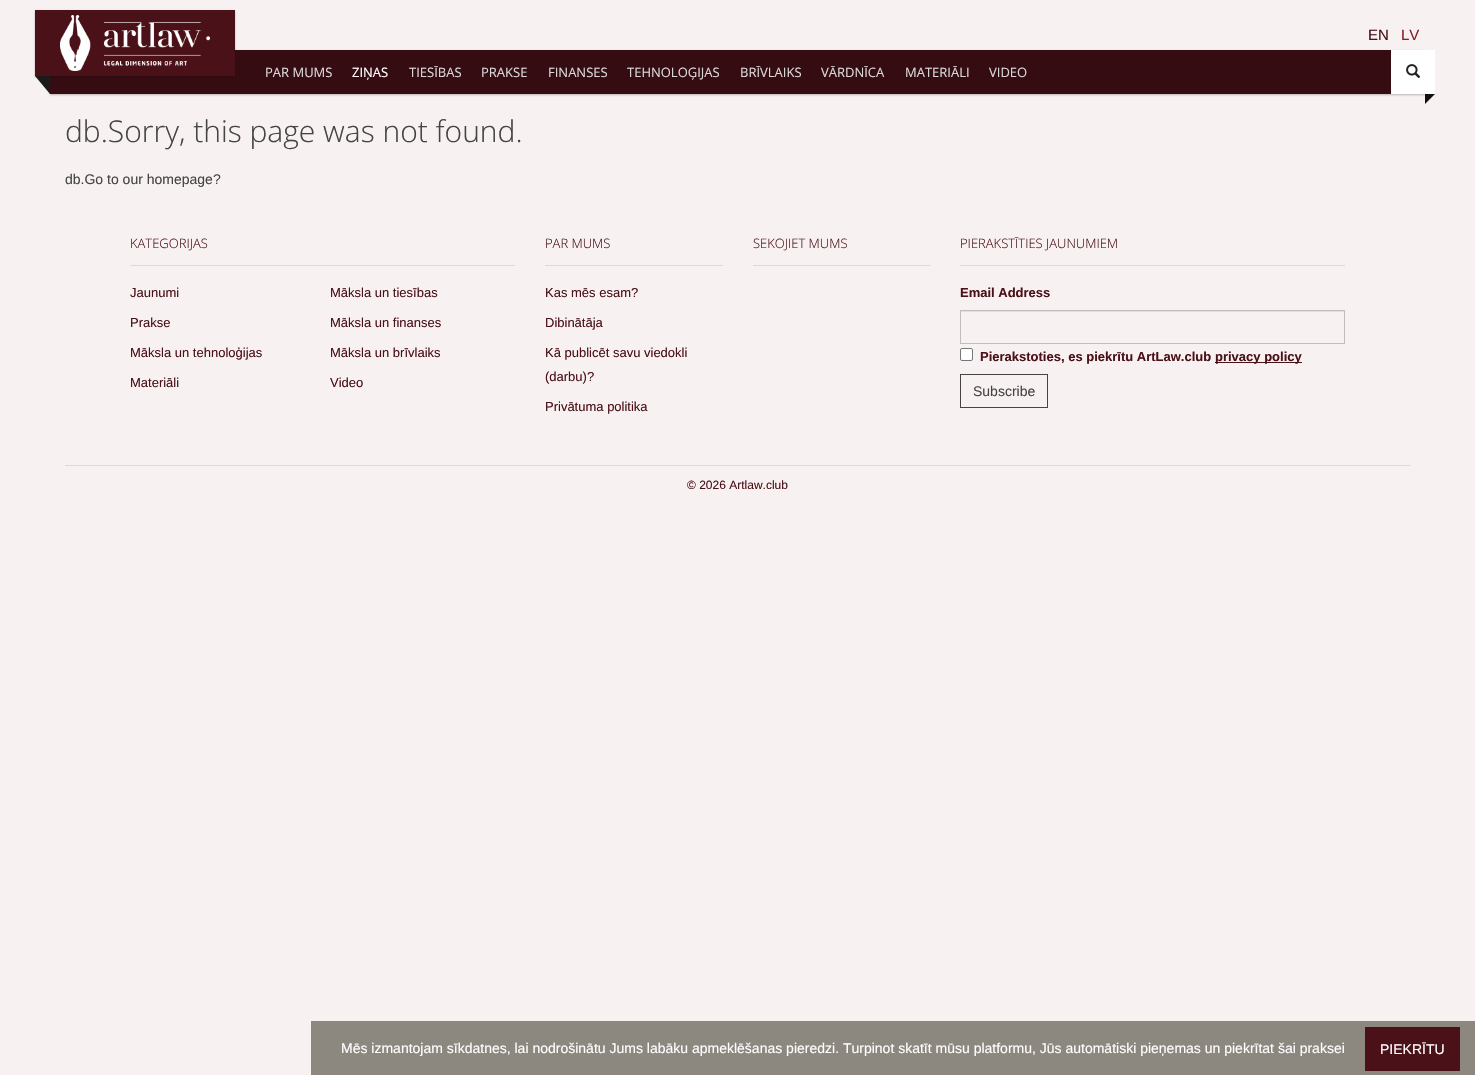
void draw(SkCanvas* canvas) {
    SkPaint paint;
    paint.setAntiAlias(true);
    auto face = [&](const char* family, int weight, float size, bool italic = false) {
        SkFontStyle style(weight, SkFontStyle::kNormal_Width,
            italic ? SkFontStyle::kItalic_Slant : SkFontStyle::kUpright_Slant);
        SkFont result(fontMgr->matchFamilyStyle(family, style), size);
        result.setSubpixel(true);
        return result;
    };
    auto write = [&](const char* s, float x, float y, const SkFont& font, SkColor color) {
        SkPaint ink(SkColor4f::FromColor(color));
        ink.setAntiAlias(true);
        canvas->drawString(s, x, y, font, ink);
    };
    auto block = [&](float x, float y, float w, float h, SkColor color) {
        SkPaint ink(SkColor4f::FromColor(color));
        ink.setAntiAlias(true);
        canvas->drawRect(SkRect::MakeXYWH(x, y, w, h), ink);
    };
    auto paste = [&](const char* path, float x, float y, float w, float h) {
        auto image = SkImages::DeferredFromEncodedData(SkData::MakeFromFileName(path));
        canvas->drawImageRect(image, SkRect::MakeXYWH(x, y, w, h), SkSamplingOptions());
    };
    canvas->clear(SkColorSetRGB(248, 241, 241));
    paint.setColor(SkColorSetARGB(64, 0, 0, 0));
    paint.setMaskFilter(SkMaskFilter::MakeBlur(kNormal_SkBlurStyle, 1));
    canvas->drawRect(SkRect::MakeXYWH(50, 51, 1375, 44), paint);
    paint.setMaskFilter(nullptr);
    block(50, 50, 1341, 44, SkColorSetRGB(53, 12, 17));
    paint.setMaskFilter(SkMaskFilter::MakeBlur(kNormal_SkBlurStyle, 1));
    canvas->drawRect(SkRect::MakeXYWH(35, 11, 200, 66), paint);
    paint.setMaskFilter(nullptr);
    block(35, 10, 200, 66, SkColorSetRGB(74, 17, 24));
    paste("pic1.png", 60, 15, 150, 56);
    paint.setColor(SkColorSetRGB(27, 27, 27));
    canvas->drawPath(SkPathBuilder().moveTo(50, 76).lineTo(50, 94).lineTo(35, 76).close().detach(), paint);
    auto kFont1 = face("Liberation Sans", 400, 15);
    write("EN", 1368, 40, kFont1, SkColorSetRGB(74, 17, 24));
    write("LV", 1401, 40, kFont1, SkColorSetRGB(136, 31, 44));
    auto kFont2 = face("Open Sans", 400, 13);
    write("PAR MUMS", 265, 77, kFont2, SkColorSetRGB(217, 217, 217));
    write("ZIŅAS", 352, 77, kFont2, SK_ColorWHITE);
    write("TIESĪBAS", 409, 77, kFont2, SkColorSetRGB(217, 217, 217));
    write("PRAKSE", 481, 77, kFont2, SkColorSetRGB(217, 217, 217));
    write("FINANSES", 548, 77, kFont2, SkColorSetRGB(217, 217, 217));
    write("TEHNOLOĢIJAS", 627, 77, kFont2, SkColorSetRGB(217, 217, 217));
    write("BRĪVLAIKS", 740, 77, kFont2, SkColorSetRGB(217, 217, 217));
    write("VĀRDNĪCA", 821, 77, kFont2, SkColorSetRGB(217, 217, 217));
    write("MATERIĀLI", 905, 77, kFont2, SkColorSetRGB(217, 217, 217));
    write("VIDEO", 989, 77, kFont2, SkColorSetRGB(217, 217, 217));
    block(1391, 50, 44, 44, SK_ColorWHITE);
    paste("pic2.png", 1406, 64, 15, 14);
    paint.setColor(SkColorSetRGB(17, 17, 17));
    canvas->drawPath(SkPathBuilder().moveTo(1425, 104).lineTo(1425, 94).lineTo(1435, 94).close().detach(), paint);
    auto kFont3 = face("Open Sans", 300, 30);
    write("db.Sorry, this page was not found.", 65, 142, kFont3, SkColorSetRGB(68, 68, 68));
    auto kFont4 = face("Liberation Sans", 400, 14);
    write("db.Go to our homepage?", 65, 184, kFont4, SkColorSetRGB(68, 68, 68));
    block(130, 265, 385, 1, SkColorSetRGB(233, 210, 210));
    auto kFont5 = face("Open Sans", 300, 13);
    write("KATEGORIJAS", 130, 248, kFont5, SkColorSetRGB(74, 17, 24));
    auto kFont6 = face("Liberation Sans", 400, 13);
    write("Jaunumi", 130, 297, kFont6, SkColorSetRGB(74, 17, 24));
    write("Māksla un tiesības", 330, 297, kFont6, SkColorSetRGB(74, 17, 24));
    write("Prakse", 130, 327, kFont6, SkColorSetRGB(74, 17, 24));
    write("Māksla un finanses", 330, 327, kFont6, SkColorSetRGB(74, 17, 24));
    write("Māksla un tehnoloģijas", 130, 357, kFont6, SkColorSetRGB(74, 17, 24));
    write("Māksla un brīvlaiks", 330, 357, kFont6, SkColorSetRGB(74, 17, 24));
    write("Materiāli", 130, 387, kFont6, SkColorSetRGB(74, 17, 24));
    write("Video", 330, 387, kFont6, SkColorSetRGB(74, 17, 24));
    block(545, 265, 178, 1, SkColorSetRGB(233, 210, 210));
    write("PAR MUMS", 545, 248, kFont5, SkColorSetRGB(74, 17, 24));
    write("Kas mēs esam?", 545, 297, kFont6, SkColorSetRGB(74, 17, 24));
    write("Dibinātāja", 545, 327, kFont6, SkColorSetRGB(74, 17, 24));
    write("Kā publicēt savu viedokli", 545, 357, kFont6, SkColorSetRGB(74, 17, 24));
    write("(darbu)?", 545, 381, kFont6, SkColorSetRGB(74, 17, 24));
    write("Privātuma politika", 545, 411, kFont6, SkColorSetRGB(74, 17, 24));
    block(753, 265, 177, 1, SkColorSetRGB(233, 210, 210));
    write("SEKOJIET MUMS", 753, 248, kFont5, SkColorSetRGB(74, 17, 24));
    block(960, 265, 385, 1, SkColorSetRGB(233, 210, 210));
    write("PIERAKSTĪTIES JAUNUMIEM", 960, 248, kFont5, SkColorSetRGB(74, 17, 24));
    auto kFont7 = face("Liberation Sans", 700, 13);
    write("Email Address", 960, 297, kFont7, SkColorSetRGB(74, 17, 24));
    block(961, 311, 383, 1, SkColorSetRGB(229, 223, 223));
    paint.setStyle(SkPaint::kStroke_Style);
    paint.setStrokeWidth(1);
    paint.setColor(SkColorSetRGB(194, 189, 189));
    canvas->drawRect(SkRect::MakeXYWH(960.5f, 310.5f, 384, 33), paint);
    paint.setStyle(SkPaint::kFill_Style);
    paint.setColor(SK_ColorWHITE);
    canvas->drawRoundRect(SkRect::MakeXYWH(960.5f, 348.5f, 12, 12), 1.5f, 1.5f, paint);
    paint.setStyle(SkPaint::kStroke_Style);
    paint.setColor(SkColorSetRGB(118, 118, 118));
    canvas->drawRoundRect(SkRect::MakeXYWH(960.5f, 348.5f, 12, 12), 1.5f, 1.5f, paint);
    write("Pierakstoties, es piekrītu ArtLaw.club", 980, 361, kFont7, SkColorSetRGB(74, 17, 24));
    block(1215, 362, 87, 1, SkColorSetRGB(74, 17, 24));
    write("privacy policy", 1215, 361, kFont7, SkColorSetRGB(74, 17, 24));
    paint.setColor(SkColorSetRGB(68, 68, 68));
    canvas->drawRect(SkRect::MakeXYWH(960.5f, 374.5f, 87, 33), paint);
    write("Subscribe", 973, 396, kFont4, SkColorSetRGB(68, 68, 68));
    block(65, 465, 1345, 1, SkColorSetRGB(233, 210, 210));
    auto kFont8 = face("Liberation Sans", 400, 12);
    write("© 2026 Artlaw.club", 687, 489, kFont8, SkColorSetRGB(74, 17, 24));
    block(311, 1021, 1164, 54, SkColorSetRGB(140, 136, 128));
    write("Mēs izmantojam sīkdatnes, lai nodrošinātu Jums labāku apmeklēšanas pieredzi. Turpinot skatīt mūsu platformu, Jūs automātiski pieņemas un piekrītat šai praksei", 341, 1053, kFont4, SK_ColorWHITE);
    block(1365, 1027, 95, 44, SkColorSetRGB(74, 17, 24));
    write("PIEKRĪTU", 1380, 1054, kFont4, SK_ColorWHITE);
}
